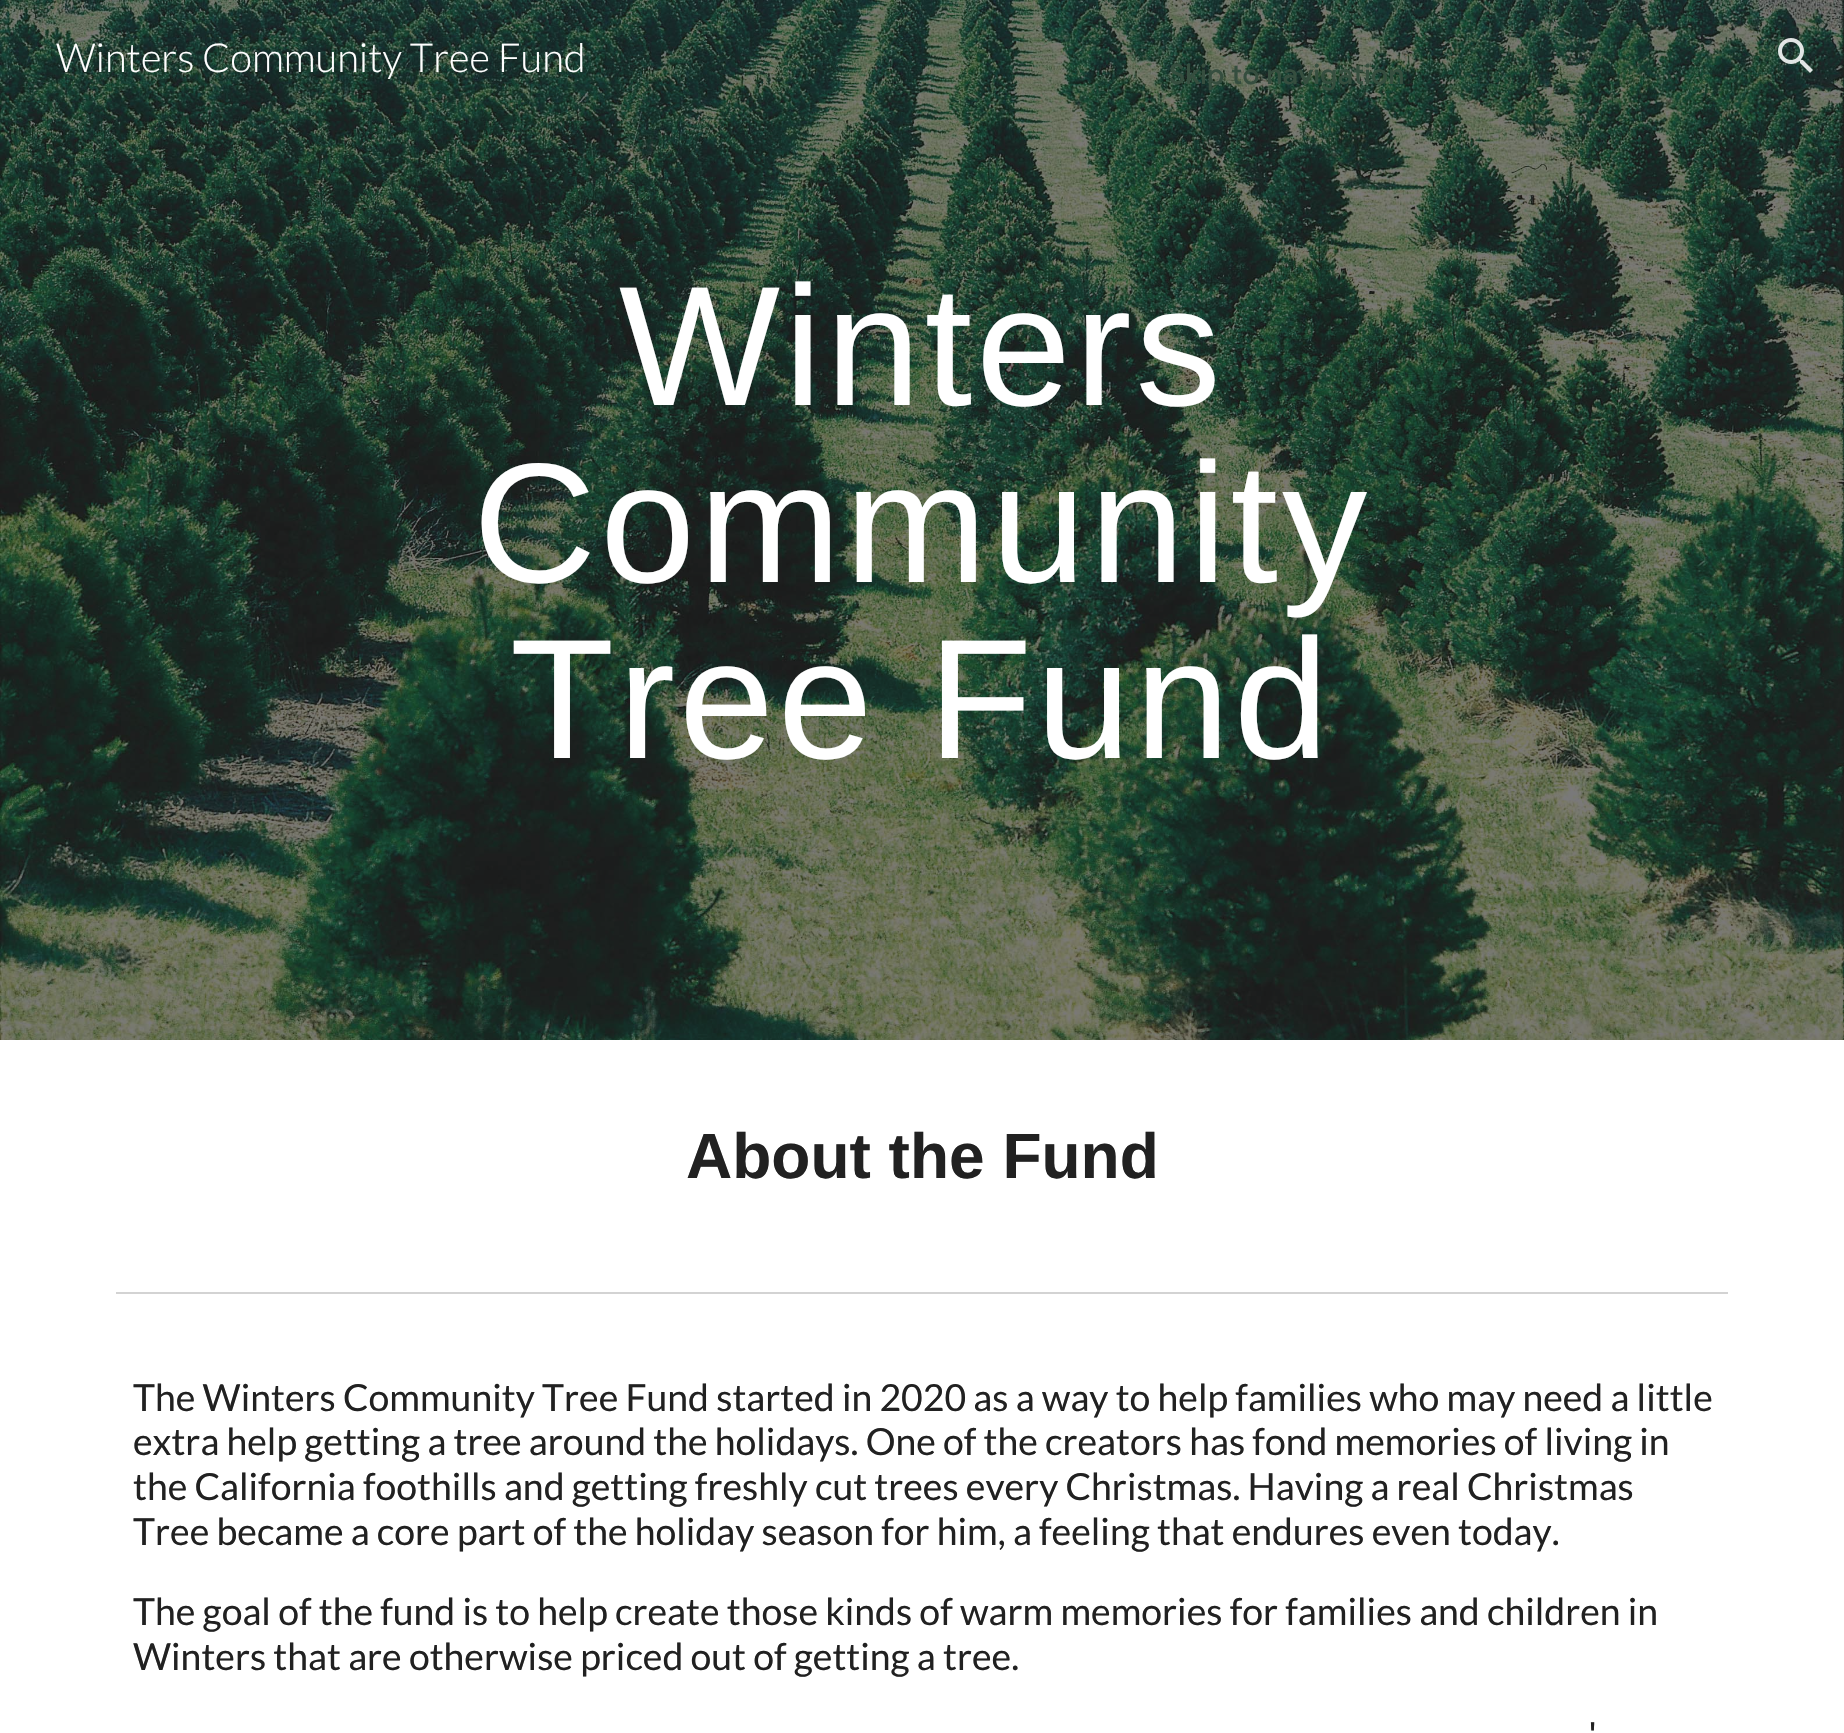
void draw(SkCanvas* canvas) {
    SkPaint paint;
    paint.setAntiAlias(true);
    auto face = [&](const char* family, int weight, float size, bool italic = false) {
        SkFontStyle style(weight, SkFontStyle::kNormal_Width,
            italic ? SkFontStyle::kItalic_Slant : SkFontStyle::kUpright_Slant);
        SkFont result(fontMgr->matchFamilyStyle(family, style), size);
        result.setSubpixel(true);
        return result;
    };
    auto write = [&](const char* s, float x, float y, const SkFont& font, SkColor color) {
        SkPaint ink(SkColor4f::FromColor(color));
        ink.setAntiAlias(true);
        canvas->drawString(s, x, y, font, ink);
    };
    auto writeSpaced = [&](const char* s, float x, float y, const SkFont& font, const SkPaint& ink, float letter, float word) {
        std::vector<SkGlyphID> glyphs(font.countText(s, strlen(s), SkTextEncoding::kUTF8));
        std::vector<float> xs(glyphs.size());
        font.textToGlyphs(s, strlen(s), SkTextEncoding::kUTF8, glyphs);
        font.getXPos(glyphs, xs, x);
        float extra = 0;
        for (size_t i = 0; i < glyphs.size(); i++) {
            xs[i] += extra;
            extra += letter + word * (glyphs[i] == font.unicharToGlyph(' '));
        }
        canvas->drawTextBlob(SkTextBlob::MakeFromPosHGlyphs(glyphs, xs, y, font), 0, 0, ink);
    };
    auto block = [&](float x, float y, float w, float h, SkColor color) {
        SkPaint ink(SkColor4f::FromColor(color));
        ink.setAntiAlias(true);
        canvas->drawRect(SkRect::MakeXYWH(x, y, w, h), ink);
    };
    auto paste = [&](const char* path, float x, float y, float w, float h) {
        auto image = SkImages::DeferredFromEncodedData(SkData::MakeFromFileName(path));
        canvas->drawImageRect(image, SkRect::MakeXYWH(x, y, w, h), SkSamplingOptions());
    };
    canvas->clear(SK_ColorWHITE);
    paste("pic2.png", 0, 0, 1844, 1040);
    auto kFont1 = face("Lato", 300, 40);
    write("Winters Community Tree Fund", 56, 72, kFont1, SK_ColorWHITE);
    paste("pic1.png", 1778, 38, 35, 35);
    auto kFont2 = face("Liberation Sans", 400, 170.5f);
    paint.setColor(SK_ColorWHITE);
    writeSpaced("Winters", 619, 405, kFont2, paint, 4, 0);
    writeSpaced("Community", 473, 582, kFont2, paint, 4, 0);
    writeSpaced("Tree Fund", 510, 758, kFont2, paint, 4, 0);
    auto kFont3 = face("Liberation Sans", 700, 64);
    write("About the Fund", 686, 1178, kFont3, SkColorSetRGB(33, 33, 33));
    block(116, 1292, 1612, 2, SkColorSetRGB(211, 211, 211));
    auto kFont4 = face("Lato", 400, 37.35f);
    write("The Winters Community Tree Fund started in 2020 as a way to help families who may need a little", 133, 1411, kFont4, SkColorSetRGB(33, 33, 33));
    write("extra help getting a tree around the holidays. One of the creators has fond memories of living in", 133, 1455, kFont4, SkColorSetRGB(33, 33, 33));
    write("the California foothills and getting freshly cut trees every Christmas. Having a real Christmas", 133, 1500, kFont4, SkColorSetRGB(33, 33, 33));
    write("Tree became a core part of the holiday season for him, a feeling that endures even today.", 133, 1545, kFont4, SkColorSetRGB(33, 33, 33));
    write("The goal of the fund is to help create those kinds of warm memories for families and children in", 133, 1625, kFont4, SkColorSetRGB(33, 33, 33));
    write("Winters that are otherwise priced out of getting a tree.", 133, 1670, kFont4, SkColorSetRGB(33, 33, 33));
    auto kFont5 = face("Liberation Sans", 400, 37.35f);
    write("'", 1589, 1748, kFont5, SkColorSetRGB(33, 33, 33));
    auto kFont6 = face("Google Sans", 500, 28);
    paint.setColor(SkColorSetRGB(54, 78, 63));
    writeSpaced("Skip to navigation", 1169, 84, kFont6, paint, 0.25f, 0);
}
